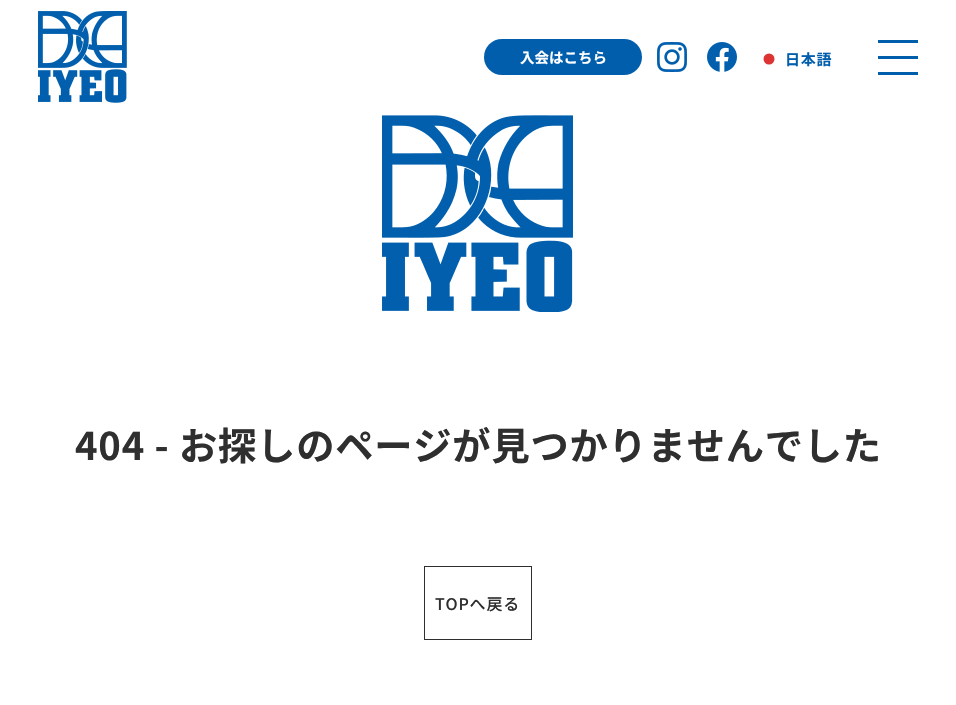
void draw(SkCanvas* canvas) {
    SkPaint paint;
    paint.setAntiAlias(true);
    auto face = [&](const char* family, int weight, float size, bool italic = false) {
        SkFontStyle style(weight, SkFontStyle::kNormal_Width,
            italic ? SkFontStyle::kItalic_Slant : SkFontStyle::kUpright_Slant);
        SkFont result(fontMgr->matchFamilyStyle(family, style), size);
        result.setSubpixel(true);
        return result;
    };
    auto write = [&](const char* s, float x, float y, const SkFont& font, SkColor color) {
        SkPaint ink(SkColor4f::FromColor(color));
        ink.setAntiAlias(true);
        canvas->drawString(s, x, y, font, ink);
    };
    auto writeSpaced = [&](const char* s, float x, float y, const SkFont& font, const SkPaint& ink, float letter, float word) {
        std::vector<SkGlyphID> glyphs(font.countText(s, strlen(s), SkTextEncoding::kUTF8));
        std::vector<float> xs(glyphs.size());
        font.textToGlyphs(s, strlen(s), SkTextEncoding::kUTF8, glyphs);
        font.getXPos(glyphs, xs, x);
        float extra = 0;
        for (size_t i = 0; i < glyphs.size(); i++) {
            xs[i] += extra;
            extra += letter + word * (glyphs[i] == font.unicharToGlyph(' '));
        }
        canvas->drawTextBlob(SkTextBlob::MakeFromPosHGlyphs(glyphs, xs, y, font), 0, 0, ink);
    };
    auto block = [&](float x, float y, float w, float h, SkColor color) {
        SkPaint ink(SkColor4f::FromColor(color));
        ink.setAntiAlias(true);
        canvas->drawRect(SkRect::MakeXYWH(x, y, w, h), ink);
    };
    auto card = [&](float x, float y, float w, float h, float radius, SkColor color) {
        SkPaint ink(SkColor4f::FromColor(color));
        ink.setAntiAlias(true);
        canvas->drawRoundRect(SkRect::MakeXYWH(x, y, w, h), radius, radius, ink);
    };
    auto paste = [&](const char* path, float x, float y, float w, float h) {
        auto image = SkImages::DeferredFromEncodedData(SkData::MakeFromFileName(path));
        canvas->drawImageRect(image, SkRect::MakeXYWH(x, y, w, h), SkSamplingOptions());
    };
    canvas->clear(SK_ColorWHITE);
    paste("pic1.png", 38, 11, 89, 92);
    card(484, 39, 158, 36, 18, SkColorSetRGB(0, 94, 173));
    auto kFont1 = face("Noto Sans JP", 700, 14.5f);
    write("入会はこちら", 520, 63, kFont1, SK_ColorWHITE);
    paste("pic2.png", 657, 42, 30, 30);
    paste("pic3.png", 707, 42, 30, 30);
    auto kFont2 = face("Noto Sans JP", 700, 15);
    paint.setColor(SkColorSetRGB(0, 94, 173));
    writeSpaced("日本語", 785, 65, kFont2, paint, 0.8f, 0);
    paint.setColor(SkColorSetRGB(220, 51, 51));
    canvas->drawCircle(769, 59, 5.5f, paint);
    block(878, 40, 40, 3, SkColorSetRGB(0, 94, 173));
    block(878, 56, 40, 3, SkColorSetRGB(0, 94, 173));
    block(878, 72, 40, 3, SkColorSetRGB(0, 94, 173));
    paste("pic4.png", 382, 115, 191, 197);
    auto kFont3 = face("Noto Sans JP", 700, 38.25f);
    paint.setColor(SkColorSetRGB(47, 47, 47));
    writeSpaced("404 - お探しのページが見つかりませんでした", 75, 460, kFont3, paint, 0.8f, 0);
    paint.setStyle(SkPaint::kStroke_Style);
    paint.setStrokeWidth(1);
    canvas->drawRect(SkRect::MakeXYWH(424.5f, 566.5f, 107, 73), paint);
    auto kFont4 = face("Noto Sans JP", 500, 16);
    paint.setStyle(SkPaint::kFill_Style);
    writeSpaced("TOPへ戻る", 435, 610, kFont4, paint, 0.8f, 0);
}
